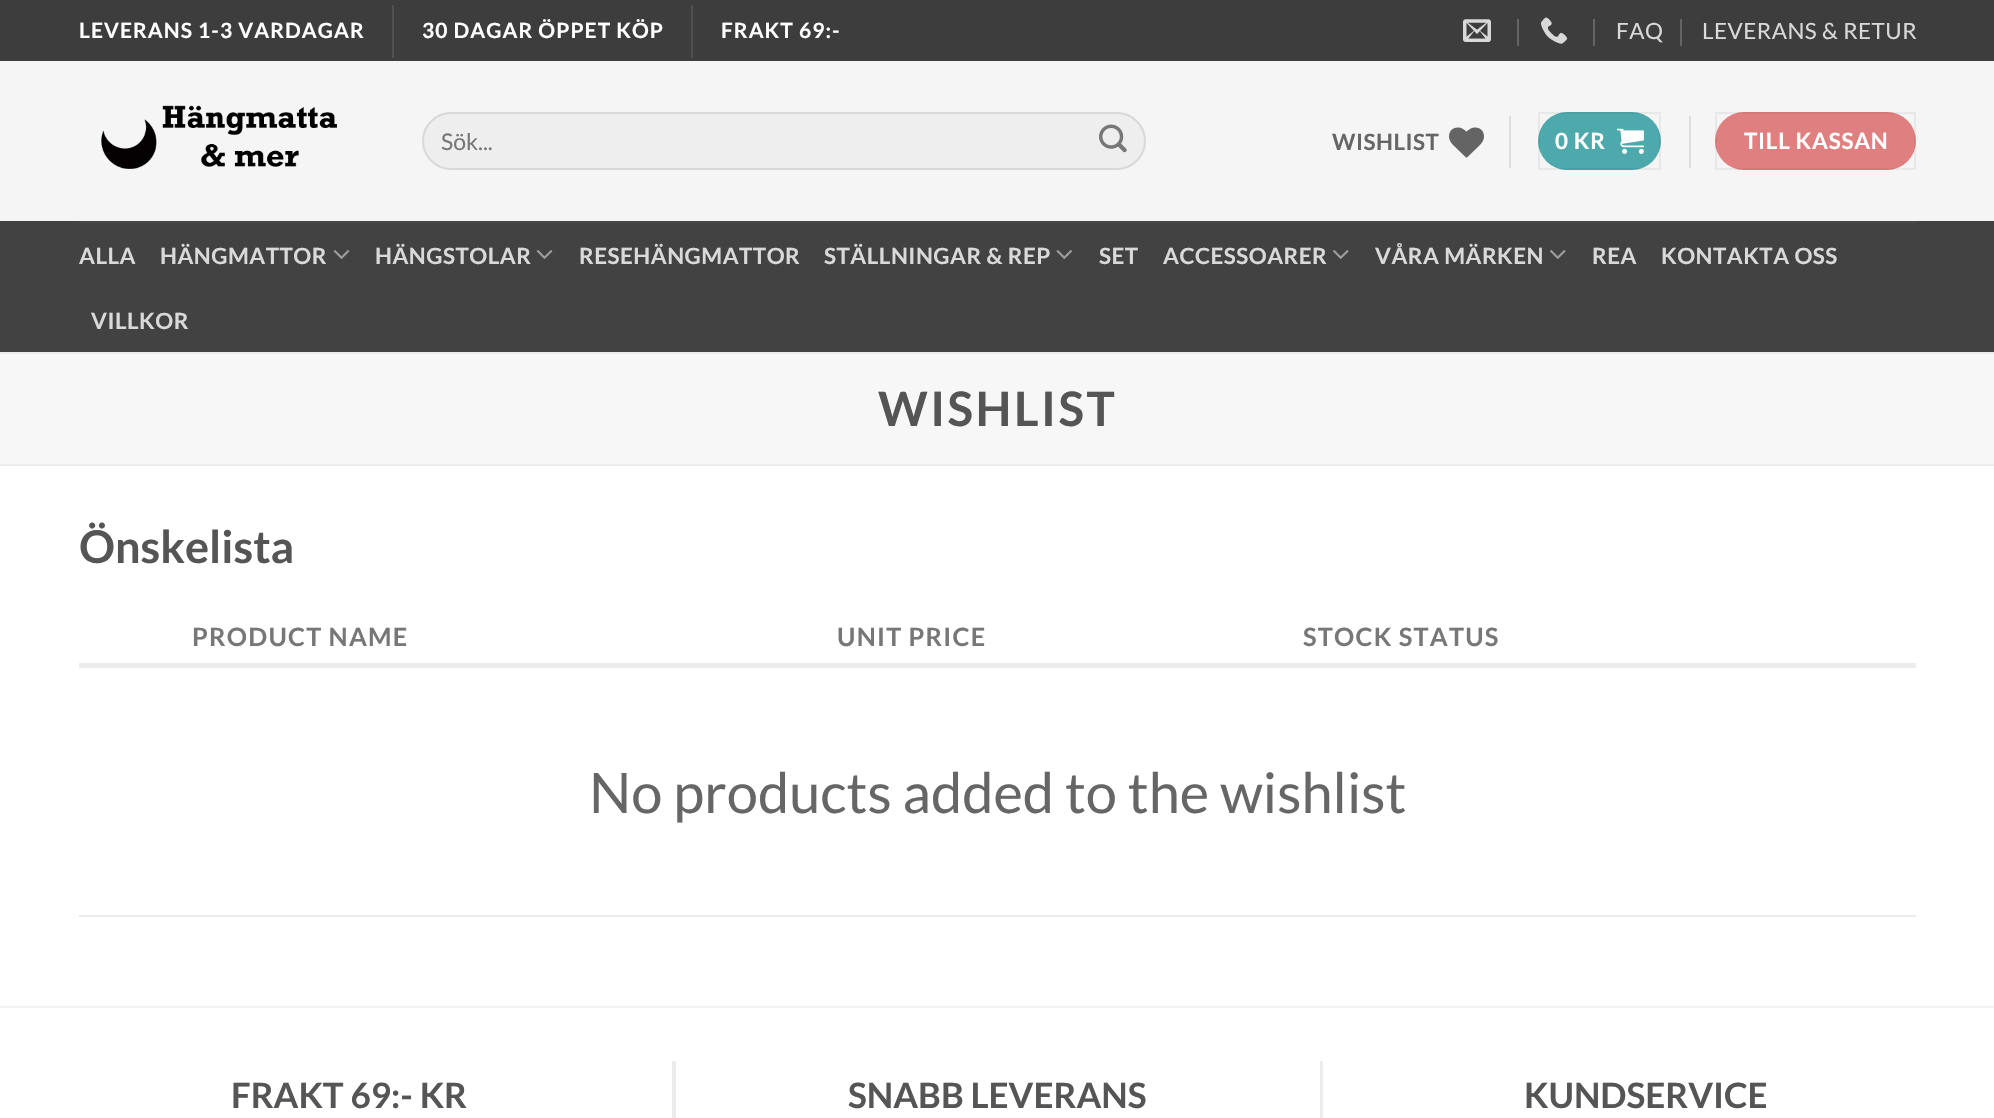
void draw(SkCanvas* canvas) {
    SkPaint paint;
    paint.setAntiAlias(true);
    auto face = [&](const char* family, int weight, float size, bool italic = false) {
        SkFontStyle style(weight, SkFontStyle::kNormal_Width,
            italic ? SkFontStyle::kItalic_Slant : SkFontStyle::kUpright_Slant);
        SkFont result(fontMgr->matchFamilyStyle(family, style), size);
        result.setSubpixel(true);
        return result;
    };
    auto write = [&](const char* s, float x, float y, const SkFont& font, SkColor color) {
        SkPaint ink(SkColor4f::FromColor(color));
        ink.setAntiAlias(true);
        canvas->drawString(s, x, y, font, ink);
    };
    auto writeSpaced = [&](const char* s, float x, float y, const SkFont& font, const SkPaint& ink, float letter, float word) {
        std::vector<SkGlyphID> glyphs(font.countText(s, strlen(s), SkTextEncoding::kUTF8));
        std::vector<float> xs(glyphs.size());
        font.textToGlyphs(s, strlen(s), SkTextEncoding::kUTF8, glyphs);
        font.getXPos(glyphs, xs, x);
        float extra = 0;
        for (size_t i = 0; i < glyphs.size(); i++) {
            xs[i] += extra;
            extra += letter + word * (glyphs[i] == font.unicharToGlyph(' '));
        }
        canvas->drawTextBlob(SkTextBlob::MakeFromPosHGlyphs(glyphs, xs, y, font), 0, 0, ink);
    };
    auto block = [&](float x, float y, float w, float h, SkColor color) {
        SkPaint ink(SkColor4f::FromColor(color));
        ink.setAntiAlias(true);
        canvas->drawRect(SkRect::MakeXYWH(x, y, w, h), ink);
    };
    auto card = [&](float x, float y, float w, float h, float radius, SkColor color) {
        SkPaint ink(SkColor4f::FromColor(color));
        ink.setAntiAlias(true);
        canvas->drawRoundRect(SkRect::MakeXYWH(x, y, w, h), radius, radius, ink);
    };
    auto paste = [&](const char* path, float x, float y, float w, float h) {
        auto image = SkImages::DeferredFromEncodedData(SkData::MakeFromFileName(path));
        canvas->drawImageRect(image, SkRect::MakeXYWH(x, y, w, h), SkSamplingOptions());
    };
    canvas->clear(SK_ColorWHITE);
    block(0, 0, 1994, 61, SkColorSetRGB(61, 61, 61));
    auto kFont1 = face("Lato", 700, 21);
    paint.setColor(SK_ColorWHITE);
    writeSpaced("LEVERANS 1-3 VARDAGAR", 79, 38, kFont1, paint, 1.05f, 0);
    block(392, 5, 2, 53, SkColorSetRGB(80, 80, 80));
    writeSpaced("30 DAGAR ÖPPET KÖP", 422, 38, kFont1, paint, 1.05f, 0);
    block(691, 5, 2, 53, SkColorSetRGB(80, 80, 80));
    writeSpaced("FRAKT 69:-", 721, 38, kFont1, paint, 1.05f, 0);
    paste("pic1.png", 1463, 19, 28, 23);
    block(1517, 19, 2, 27, SkColorSetRGB(100, 100, 100));
    paste("pic2.png", 1540, 17, 28, 27);
    block(1593, 19, 2, 27, SkColorSetRGB(100, 100, 100));
    auto kFont2 = face("Lato", 400, 22.4f);
    paint.setColor(SkColorSetRGB(217, 217, 217));
    writeSpaced("FAQ", 1616, 39, kFont2, paint, 0.5f, 0);
    block(1680, 19, 2, 27, SkColorSetRGB(100, 100, 100));
    writeSpaced("LEVERANS & RETUR", 1702, 39, kFont2, paint, 0.5f, 0);
    block(0, 61, 1994, 160, SkColorSetRGB(245, 245, 245));
    paste("pic3.png", 101, 105, 236, 64);
    card(422, 112, 724, 58, 29, SkColorSetRGB(238, 238, 238));
    paint.setStyle(SkPaint::kStroke_Style);
    paint.setStrokeWidth(2);
    paint.setColor(SkColorSetARGB(23, 0, 0, 0));
    canvas->drawRoundRect(SkRect::MakeXYWH(423, 113, 722, 56), 28, 28, paint);
    auto kFont3 = face("Lato", 400, 23);
    write("Sök...", 441, 150, kFont3, SkColorSetRGB(119, 119, 119));
    paste("pic4.png", 1099, 124, 28, 29);
    auto kFont4 = face("Lato", 700, 22.4f);
    paint.setStyle(SkPaint::kFill_Style);
    paint.setColor(SkColorSetRGB(102, 102, 102));
    writeSpaced("WISHLIST", 1332, 150, kFont4, paint, 0.5f, 0);
    paste("pic5.png", 1449, 127, 35, 31);
    block(1509, 116, 2, 52, SkColorSetRGB(221, 221, 221));
    card(1538, 112, 123, 58, 29, SkColorSetRGB(77, 169, 172));
    paint.setStyle(SkPaint::kStroke_Style);
    paint.setColor(SkColorSetARGB(13, 0, 0, 0));
    canvas->drawRect(SkRect::MakeXYWH(1539, 113, 121, 56), paint);
    paint.setStyle(SkPaint::kFill_Style);
    paint.setColor(SK_ColorWHITE);
    writeSpaced("0 KR", 1555, 149, kFont4, paint, 0.75f, 0);
    paste("pic6.png", 1617, 128, 27, 26);
    block(1689, 116, 2, 52, SkColorSetRGB(221, 221, 221));
    card(1715, 112, 201, 58, 29, SkColorSetRGB(224, 127, 127));
    paint.setStyle(SkPaint::kStroke_Style);
    paint.setColor(SkColorSetARGB(13, 0, 0, 0));
    canvas->drawRect(SkRect::MakeXYWH(1716, 113, 199, 56), paint);
    paint.setStyle(SkPaint::kFill_Style);
    paint.setColor(SK_ColorWHITE);
    writeSpaced("TILL KASSAN", 1744, 149, kFont4, paint, 0.75f, 0);
    block(0, 221, 1994, 131, SkColorSetRGB(66, 66, 66));
    block(79, 221, 1837, 2, SkColorSetRGB(71, 71, 71));
    paint.setColor(SkColorSetRGB(217, 217, 217));
    writeSpaced("ALLA", 79, 264, kFont4, paint, 0.5f, 0);
    writeSpaced("HÄNGMATTOR", 160, 264, kFont4, paint, 0.5f, 0);
    paste("pic7.png", 333, 250, 17, 9);
    writeSpaced("HÄNGSTOLAR", 375, 264, kFont4, paint, 0.5f, 0);
    paste("pic7.png", 536, 250, 17, 9);
    writeSpaced("RESEHÄNGMATTOR", 579, 264, kFont4, paint, 0.5f, 0);
    writeSpaced("STÄLLNINGAR & REP", 824, 264, kFont4, paint, 0.5f, 0);
    paste("pic8.png", 1056, 250, 16, 9);
    writeSpaced("SET", 1099, 264, kFont4, paint, 0.5f, 0);
    writeSpaced("ACCESSOARER", 1163, 264, kFont4, paint, 0.5f, 0);
    paste("pic9.png", 1333, 250, 16, 9);
    writeSpaced("VÅRA MÄRKEN", 1375, 264, kFont4, paint, 0.5f, 0);
    paste("pic9.png", 1550, 250, 16, 9);
    writeSpaced("REA", 1592, 264, kFont4, paint, 0.5f, 0);
    writeSpaced("KONTAKTA OSS", 1661, 264, kFont4, paint, 0.5f, 0);
    writeSpaced("VILLKOR", 91, 329, kFont4, paint, 0.5f, 0);
    block(0, 354, 1994, 110, SkColorSetRGB(247, 247, 247));
    block(0, 352, 1994, 2, SkColorSetRGB(236, 236, 236));
    block(0, 464, 1994, 2, SkColorSetRGB(236, 236, 236));
    auto kFont5 = face("Lato", 700, 47.5f);
    paint.setColor(SkColorSetRGB(85, 85, 85));
    writeSpaced("WISHLIST", 878, 426, kFont5, paint, 2.5f, 0);
    auto kFont6 = face("Lato", 700, 45);
    write("Önskelista", 79, 563, kFont6, SkColorSetRGB(85, 85, 85));
    auto kFont7 = face("Lato", 700, 25.25f);
    paint.setColor(SkColorSetRGB(119, 119, 119));
    writeSpaced("PRODUCT NAME", 192, 646, kFont7, paint, 1.25f, 0);
    writeSpaced("UNIT PRICE", 837, 646, kFont7, paint, 1.25f, 0);
    writeSpaced("STOCK STATUS", 1303, 646, kFont7, paint, 1.25f, 0);
    block(79, 663, 1837, 5, SkColorSetRGB(236, 236, 236));
    block(79, 915, 1837, 2, SkColorSetRGB(236, 236, 236));
    auto kFont8 = face("Lato", 400, 56);
    write("No products added to the wishlist", 589, 813, kFont8, SkColorSetRGB(102, 102, 102));
    block(0, 1006, 1994, 2, SkColorSetRGB(242, 242, 242));
    block(672, 1061, 4, 57, SkColorSetRGB(236, 236, 236));
    auto kFont9 = face("Lato", 700, 35);
    write("FRAKT 69:- KR", 231, 1108, kFont9, SkColorSetRGB(85, 85, 85));
    block(1320, 1061, 3, 57, SkColorSetRGB(236, 236, 236));
    write("SNABB LEVERANS", 848, 1108, kFont9, SkColorSetRGB(85, 85, 85));
    write("KUNDSERVICE", 1524, 1108, kFont9, SkColorSetRGB(85, 85, 85));
}
